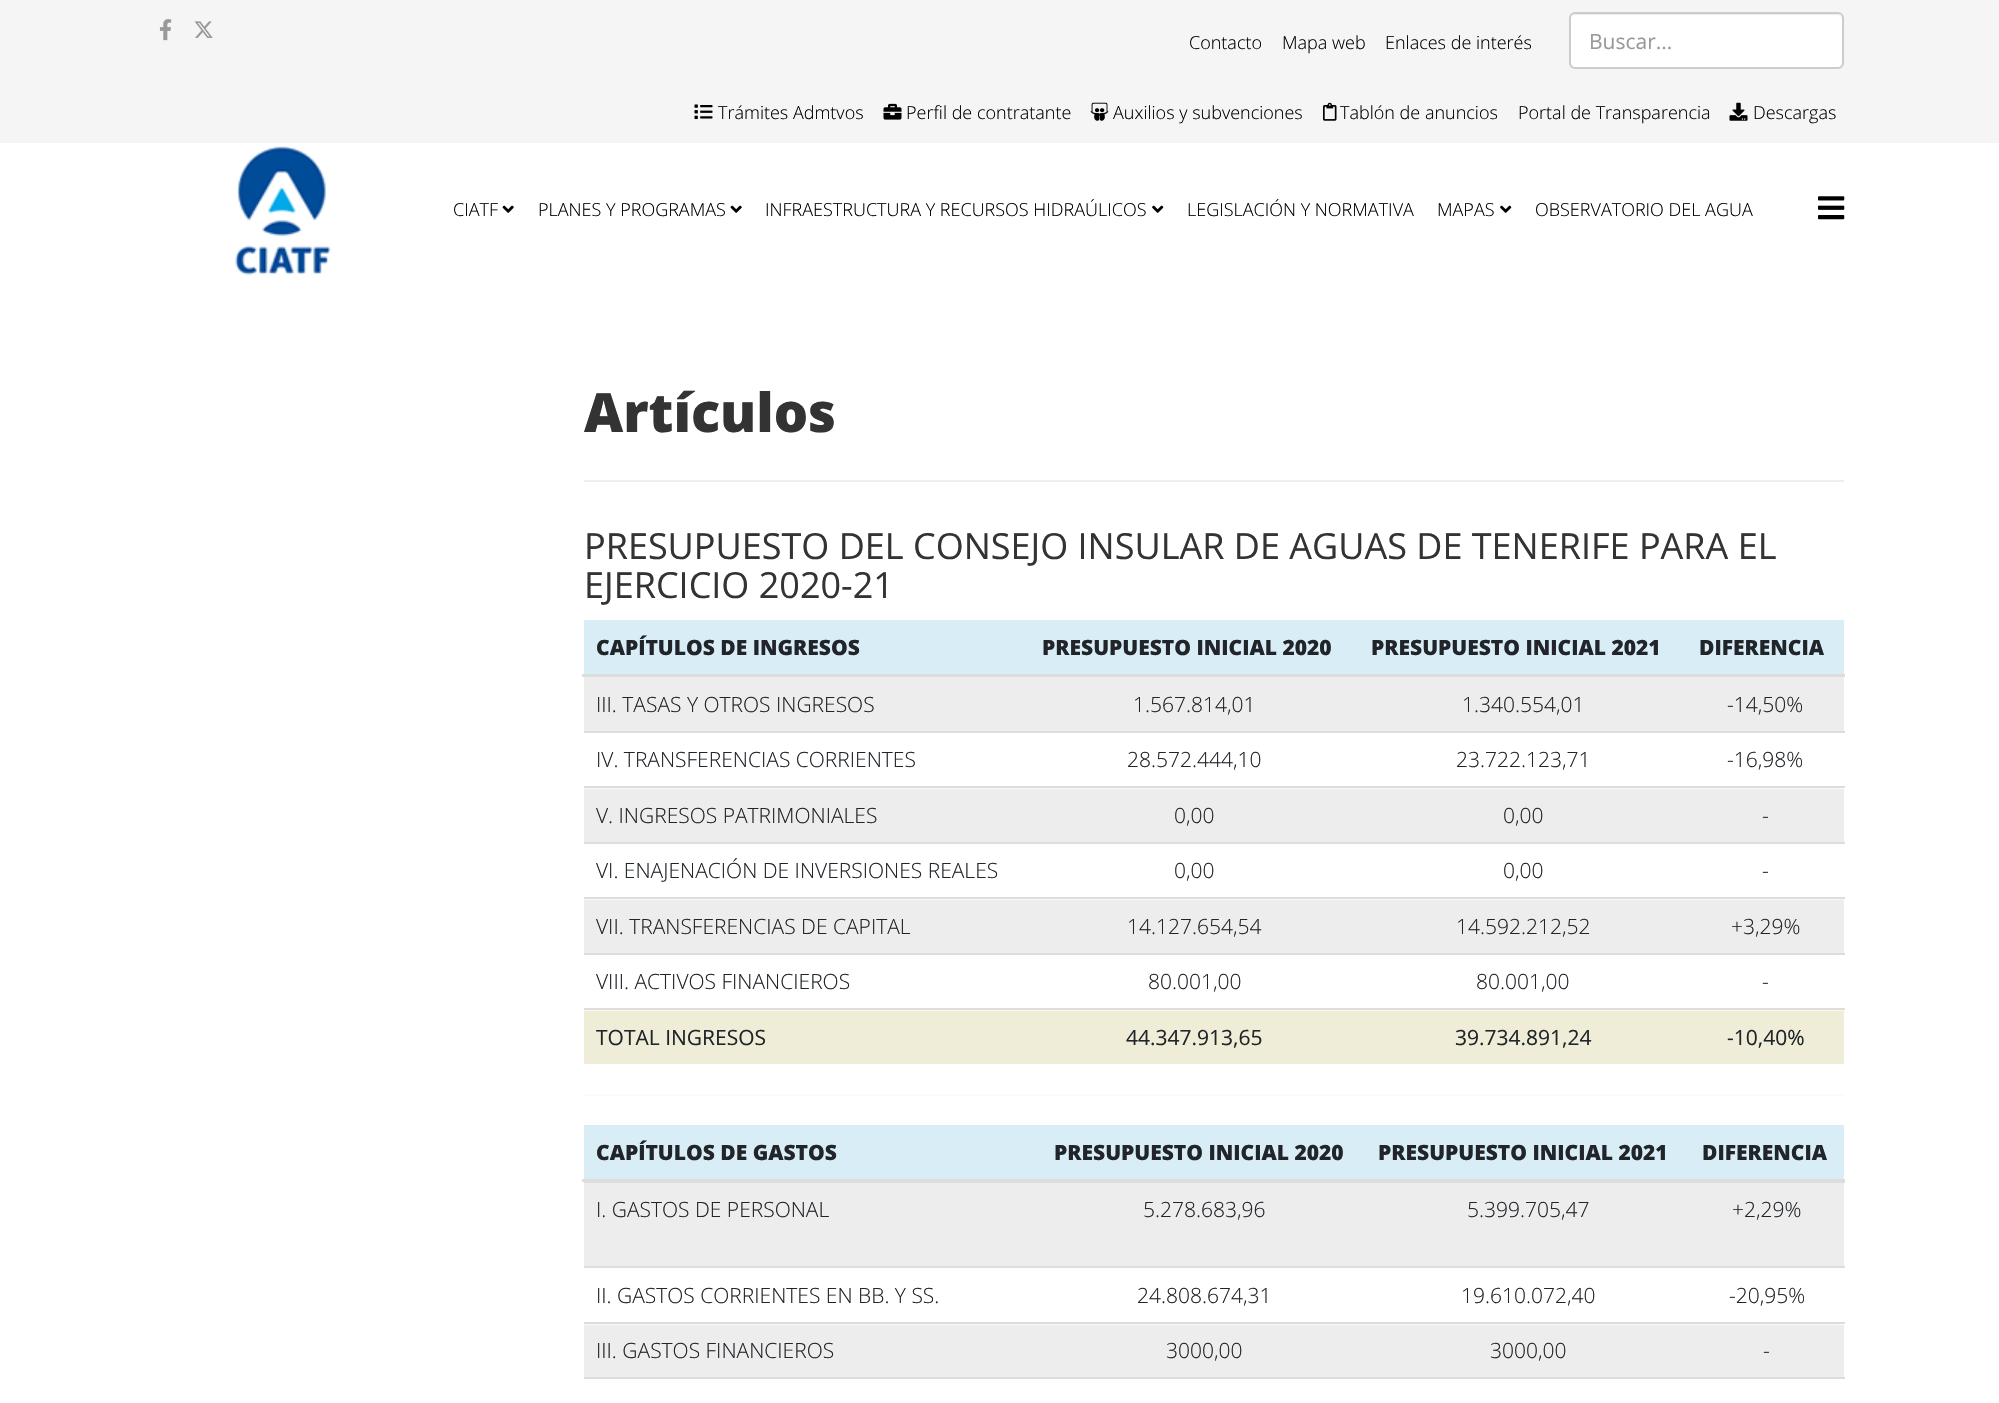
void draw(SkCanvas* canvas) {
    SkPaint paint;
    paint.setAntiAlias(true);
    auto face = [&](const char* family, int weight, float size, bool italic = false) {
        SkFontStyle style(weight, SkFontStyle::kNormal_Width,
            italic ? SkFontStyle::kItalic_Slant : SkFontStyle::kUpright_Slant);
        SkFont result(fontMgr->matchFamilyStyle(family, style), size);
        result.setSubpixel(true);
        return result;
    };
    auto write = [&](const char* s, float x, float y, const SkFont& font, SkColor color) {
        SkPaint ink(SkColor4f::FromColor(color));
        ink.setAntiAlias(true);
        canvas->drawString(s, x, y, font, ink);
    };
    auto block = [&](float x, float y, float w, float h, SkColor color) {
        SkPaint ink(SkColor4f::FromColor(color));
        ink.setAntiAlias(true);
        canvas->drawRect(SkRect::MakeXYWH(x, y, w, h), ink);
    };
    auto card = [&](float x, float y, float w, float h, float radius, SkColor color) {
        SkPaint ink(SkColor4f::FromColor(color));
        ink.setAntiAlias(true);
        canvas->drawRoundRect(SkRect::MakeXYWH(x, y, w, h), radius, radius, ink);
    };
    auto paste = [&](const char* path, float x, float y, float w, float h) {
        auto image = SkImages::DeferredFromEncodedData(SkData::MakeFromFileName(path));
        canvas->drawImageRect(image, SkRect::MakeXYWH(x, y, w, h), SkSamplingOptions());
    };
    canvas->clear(SK_ColorWHITE);
    block(0, 0, 1999, 143, SkColorSetRGB(245, 245, 245));
    paste("pic1.png", 159, 19, 13, 22);
    paste("pic2.png", 194, 21, 19, 17);
    auto kFont1 = face("Open Sans", 300, 18);
    write("Contacto", 1189, 49, kFont1, SK_ColorBLACK);
    write("Mapa web", 1282, 49, kFont1, SK_ColorBLACK);
    write("Enlaces de interés", 1385, 49, kFont1, SK_ColorBLACK);
    card(1571, 14, 271, 54, 5, SK_ColorWHITE);
    paint.setColor(SkColorSetARGB(18, 0, 0, 0));
    canvas->drawPath(SkPathBuilder().moveTo(1575, 15).lineTo(1838, 15).cubicTo(1840, 15, 1842, 17, 1842, 20).cubicTo(1842, 17, 1840, 14, 1837, 14).lineTo(1575, 14).lineTo(1573, 15).lineTo(1572, 16).close().detach(), paint);
    paint.setStyle(SkPaint::kStroke_Style);
    paint.setStrokeWidth(2);
    paint.setColor(SkColorSetRGB(204, 204, 204));
    canvas->drawRoundRect(SkRect::MakeXYWH(1570, 13, 273, 55), 5, 5, paint);
    auto kFont2 = face("Open Sans", 400, 21);
    write("Buscar...", 1589, 49, kFont2, SkColorSetRGB(153, 153, 153));
    paste("pic3.png", 694, 104, 19, 16);
    write("Trámites Admtvos", 718, 119, kFont1, SK_ColorBLACK);
    paste("pic4.png", 883, 103, 19, 17);
    write("Perfil de contratante", 906, 119, kFont1, SK_ColorBLACK);
    paste("pic5.png", 1090, 102, 19, 19);
    write("Auxilios y subvenciones", 1113, 119, kFont1, SK_ColorBLACK);
    paste("pic6.png", 1323, 102, 14, 19);
    write("Tablón de anuncios", 1340, 119, kFont1, SK_ColorBLACK);
    write("Portal de Transparencia", 1518, 119, kFont1, SK_ColorBLACK);
    paste("pic7.png", 1729, 102, 19, 19);
    write("Descargas", 1753, 119, kFont1, SK_ColorBLACK);
    paste("pic8.png", 235, 146, 96, 129);
    write("CIATF", 453, 216, kFont1, SK_ColorBLACK);
    paste("pic9.png", 502, 205, 12, 8);
    write("PLANES Y PROGRAMAS", 538, 216, kFont1, SK_ColorBLACK);
    paste("pic9.png", 730, 205, 12, 8);
    write("INFRAESTRUCTURA Y RECURSOS HIDRAÚLICOS", 765, 216, kFont1, SK_ColorBLACK);
    paste("pic10.png", 1152, 205, 12, 8);
    write("LEGISLACIÓN Y NORMATIVA", 1187, 216, kFont1, SK_ColorBLACK);
    write("MAPAS", 1437, 216, kFont1, SK_ColorBLACK);
    paste("pic10.png", 1500, 205, 12, 8);
    write("OBSERVATORIO DEL AGUA", 1535, 216, kFont1, SK_ColorBLACK);
    paste("pic11.png", 1818, 196, 27, 24);
    block(584, 480, 1260, 2, SkColorSetRGB(238, 238, 238));
    auto kFont3 = face("Open Sans", 800, 54);
    write("Artículos", 584, 432, kFont3, SkColorSetRGB(51, 51, 51));
    auto kFont4 = face("Open Sans", 400, 36);
    write("PRESUPUESTO DEL CONSEJO INSULAR DE AGUAS DE TENERIFE PARA EL", 584, 559, kFont4, SkColorSetRGB(51, 51, 51));
    write("EJERCICIO 2020-21", 584, 598, kFont4, SkColorSetRGB(51, 51, 51));
    block(584, 620, 1260, 54, SkColorSetRGB(217, 237, 247));
    auto kFont5 = face("Open Sans", 800, 21);
    write("CAPÍTULOS DE INGRESOS", 596, 655, kFont5, SkColorSetRGB(33, 37, 41));
    write("PRESUPUESTO INICIAL 2020", 1042, 655, kFont5, SkColorSetRGB(33, 37, 41));
    write("PRESUPUESTO INICIAL 2021", 1371, 655, kFont5, SkColorSetRGB(33, 37, 41));
    block(582, 674, 1263, 3, SkColorSetRGB(221, 221, 221));
    write("DIFERENCIA", 1699, 655, kFont5, SkColorSetRGB(33, 37, 41));
    block(584, 677, 1260, 54, SkColorSetRGB(237, 237, 237));
    auto kFont6 = face("Open Sans", 300, 21);
    write("III. TASAS Y OTROS INGRESOS", 596, 712, kFont6, SkColorSetRGB(33, 37, 41));
    write("1.567.814,01", 1133, 712, kFont6, SkColorSetRGB(33, 37, 41));
    write("1.340.554,01", 1462, 712, kFont6, SkColorSetRGB(33, 37, 41));
    write("-14,50%", 1727, 712, kFont6, SkColorSetRGB(33, 37, 41));
    write("IV. TRANSFERENCIAS CORRIENTES", 596, 767, kFont6, SkColorSetRGB(33, 37, 41));
    write("28.572.444,10", 1127, 767, kFont6, SkColorSetRGB(33, 37, 41));
    write("23.722.123,71", 1456, 767, kFont6, SkColorSetRGB(33, 37, 41));
    block(584, 731, 1261, 2, SkColorSetRGB(221, 221, 221));
    write("-16,98%", 1727, 767, kFont6, SkColorSetRGB(33, 37, 41));
    block(584, 788, 1260, 1, SkColorSetRGB(249, 249, 249));
    block(584, 789, 1260, 53, SkColorSetRGB(237, 237, 237));
    write("V. INGRESOS PATRIMONIALES", 596, 823, kFont6, SkColorSetRGB(33, 37, 41));
    write("0,00", 1174, 823, kFont6, SkColorSetRGB(33, 37, 41));
    write("0,00", 1503, 823, kFont6, SkColorSetRGB(33, 37, 41));
    block(584, 786, 1261, 2, SkColorSetRGB(221, 221, 221));
    write("-", 1762, 823, kFont6, SkColorSetRGB(33, 37, 41));
    write("VI. ENAJENACIÓN DE INVERSIONES REALES", 596, 878, kFont6, SkColorSetRGB(33, 37, 41));
    write("0,00", 1174, 878, kFont6, SkColorSetRGB(33, 37, 41));
    write("0,00", 1503, 878, kFont6, SkColorSetRGB(33, 37, 41));
    block(584, 842, 1261, 2, SkColorSetRGB(221, 221, 221));
    write("-", 1762, 878, kFont6, SkColorSetRGB(33, 37, 41));
    block(584, 899, 1260, 1, SkColorSetRGB(249, 249, 249));
    block(584, 900, 1260, 53, SkColorSetRGB(237, 237, 237));
    write("VII. TRANSFERENCIAS DE CAPITAL", 596, 934, kFont6, SkColorSetRGB(33, 37, 41));
    write("14.127.654,54", 1127, 934, kFont6, SkColorSetRGB(33, 37, 41));
    write("14.592.212,52", 1456, 934, kFont6, SkColorSetRGB(33, 37, 41));
    block(584, 897, 1261, 2, SkColorSetRGB(221, 221, 221));
    write("+3,29%", 1731, 934, kFont6, SkColorSetRGB(33, 37, 41));
    write("VIII. ACTIVOS FINANCIEROS", 596, 989, kFont6, SkColorSetRGB(33, 37, 41));
    write("80.001,00", 1148, 989, kFont6, SkColorSetRGB(33, 37, 41));
    write("80.001,00", 1476, 989, kFont6, SkColorSetRGB(33, 37, 41));
    block(584, 953, 1261, 2, SkColorSetRGB(221, 221, 221));
    write("-", 1762, 989, kFont6, SkColorSetRGB(33, 37, 41));
    block(584, 1010, 1260, 1, SkColorSetRGB(252, 248, 227));
    block(584, 1011, 1260, 53, SkColorSetRGB(239, 236, 216));
    write("TOTAL INGRESOS", 596, 1045, kFont2, SkColorSetRGB(33, 37, 41));
    write("44.347.913,65", 1126, 1045, kFont2, SkColorSetRGB(33, 37, 41));
    write("39.734.891,24", 1455, 1045, kFont2, SkColorSetRGB(33, 37, 41));
    block(584, 1008, 1261, 2, SkColorSetRGB(221, 221, 221));
    write("-10,40%", 1727, 1045, kFont2, SkColorSetRGB(33, 37, 41));
    block(584, 1094, 1260, 2, SkColorSetRGB(251, 251, 251));
    block(584, 1125, 1260, 54, SkColorSetRGB(217, 237, 247));
    write("CAPÍTULOS DE GASTOS", 596, 1160, kFont5, SkColorSetRGB(33, 37, 41));
    write("PRESUPUESTO INICIAL 2020", 1054, 1160, kFont5, SkColorSetRGB(33, 37, 41));
    write("PRESUPUESTO INICIAL 2021", 1378, 1160, kFont5, SkColorSetRGB(33, 37, 41));
    block(582, 1179, 1263, 3, SkColorSetRGB(221, 221, 221));
    write("DIFERENCIA", 1702, 1160, kFont5, SkColorSetRGB(33, 37, 41));
    block(584, 1183, 1260, 83, SkColorSetRGB(237, 237, 237));
    write("I. GASTOS DE PERSONAL", 596, 1217, kFont6, SkColorSetRGB(33, 37, 41));
    write("5.278.683,96", 1143, 1217, kFont6, SkColorSetRGB(33, 37, 41));
    write("5.399.705,47", 1467, 1217, kFont6, SkColorSetRGB(33, 37, 41));
    block(584, 1182, 1261, 1, SkColorSetRGB(221, 221, 221));
    write("+2,29%", 1732, 1217, kFont6, SkColorSetRGB(33, 37, 41));
    write("II. GASTOS CORRIENTES EN BB. Y SS.", 596, 1303, kFont6, SkColorSetRGB(33, 37, 41));
    write("24.808.674,31", 1137, 1303, kFont6, SkColorSetRGB(33, 37, 41));
    write("19.610.072,40", 1461, 1303, kFont6, SkColorSetRGB(33, 37, 41));
    block(584, 1266, 1261, 2, SkColorSetRGB(221, 221, 221));
    write("-20,95%", 1729, 1303, kFont6, SkColorSetRGB(33, 37, 41));
    block(584, 1324, 1260, 1, SkColorSetRGB(249, 249, 249));
    block(584, 1325, 1260, 52, SkColorSetRGB(237, 237, 237));
    write("III. GASTOS FINANCIEROS", 596, 1358, kFont6, SkColorSetRGB(33, 37, 41));
    write("3000,00", 1166, 1358, kFont6, SkColorSetRGB(33, 37, 41));
    write("3000,00", 1490, 1358, kFont6, SkColorSetRGB(33, 37, 41));
    block(584, 1322, 1261, 2, SkColorSetRGB(221, 221, 221));
    write("-", 1763, 1358, kFont6, SkColorSetRGB(33, 37, 41));
    block(584, 1377, 1261, 2, SkColorSetRGB(221, 221, 221));
}
